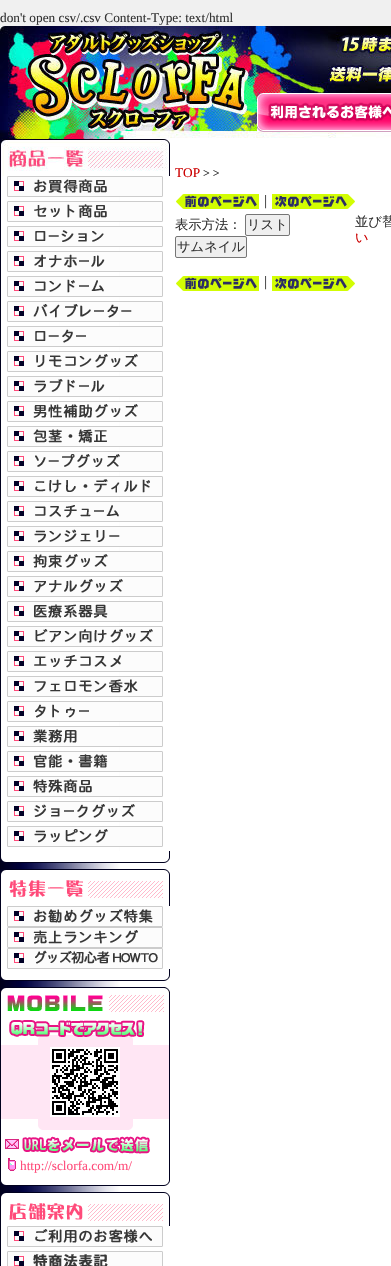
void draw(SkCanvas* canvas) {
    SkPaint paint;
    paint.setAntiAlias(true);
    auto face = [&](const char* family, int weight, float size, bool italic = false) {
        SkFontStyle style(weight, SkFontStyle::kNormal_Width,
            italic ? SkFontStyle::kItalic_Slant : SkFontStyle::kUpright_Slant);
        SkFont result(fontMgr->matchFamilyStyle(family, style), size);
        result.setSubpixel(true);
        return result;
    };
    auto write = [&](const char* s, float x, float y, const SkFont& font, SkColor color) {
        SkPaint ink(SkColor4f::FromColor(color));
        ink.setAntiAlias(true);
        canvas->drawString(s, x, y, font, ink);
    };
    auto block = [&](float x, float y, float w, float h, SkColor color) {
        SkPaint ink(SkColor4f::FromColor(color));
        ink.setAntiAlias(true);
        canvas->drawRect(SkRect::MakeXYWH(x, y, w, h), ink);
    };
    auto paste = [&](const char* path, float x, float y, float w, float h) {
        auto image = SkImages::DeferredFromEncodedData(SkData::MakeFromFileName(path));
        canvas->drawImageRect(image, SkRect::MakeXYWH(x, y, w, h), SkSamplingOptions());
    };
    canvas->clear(SkColorSetRGB(240, 240, 240));
    auto kFont1 = face("Liberation Serif", 400, 13.3f);
    write("don't open csv/.csv Content-Type: text/html", 0, 22, kFont1, SkColorSetRGB(51, 51, 51));
    paste("pic1.png", 0, 26, 391, 113);
    paste("pic2.png", 257, 93, 134, 39);
    paste("pic3.png", 0, 139, 391, 1127);
    write("TOP", 175, 177, kFont1, SkColorSetRGB(204, 0, 0));
    auto kFont2 = face("Liberation Serif", 700, 12);
    write("> >", 203, 177, kFont2, SkColorSetRGB(51, 51, 51));
    paste("pic4.png", 176, 194, 83, 15);
    auto kFont3 = face("WenQuanYi Zen Hei", 500, 13.3f);
    write("｜", 259, 205, kFont3, SkColorSetRGB(51, 51, 51));
    paste("pic5.png", 272, 194, 83, 15);
    write("表示方法：", 175, 229, kFont3, SkColorSetRGB(51, 51, 51));
    paint.setColor(SkColorSetRGB(239, 239, 239));
    canvas->drawRoundRect(SkRect::MakeXYWH(245.5f, 214.5f, 44, 21), 1.5f, 1.5f, paint);
    paint.setStyle(SkPaint::kStroke_Style);
    paint.setStrokeWidth(1);
    paint.setColor(SkColorSetRGB(118, 118, 118));
    canvas->drawRoundRect(SkRect::MakeXYWH(245.5f, 214.5f, 44, 21), 1.5f, 1.5f, paint);
    write("リスト", 247, 229, kFont3, SkColorSetRGB(51, 51, 51));
    paint.setStyle(SkPaint::kFill_Style);
    paint.setColor(SkColorSetRGB(239, 239, 239));
    canvas->drawRoundRect(SkRect::MakeXYWH(175.5f, 236.5f, 71, 21), 1.5f, 1.5f, paint);
    paint.setStyle(SkPaint::kStroke_Style);
    paint.setColor(SkColorSetRGB(118, 118, 118));
    canvas->drawRoundRect(SkRect::MakeXYWH(175.5f, 236.5f, 71, 21), 1.5f, 1.5f, paint);
    write("サムネイル", 177, 251, kFont3, SkColorSetRGB(51, 51, 51));
    write("並び替", 355, 226, kFont3, SkColorSetRGB(51, 51, 51));
    write("い", 355, 242, kFont3, SkColorSetRGB(204, 0, 0));
    paste("pic4.png", 176, 276, 83, 15);
    write("｜", 259, 286, kFont3, SkColorSetRGB(51, 51, 51));
    paste("pic5.png", 272, 276, 83, 15);
    paste("pic6.png", 0, 139, 170, 37);
    block(1, 176, 118, 675, SK_ColorWHITE);
    paste("pic7.png", 7, 176, 156, 21);
    paste("pic8.png", 7, 201, 156, 21);
    paste("pic9.png", 7, 226, 156, 21);
    paste("pic10.png", 7, 251, 156, 21);
    paste("pic11.png", 7, 276, 156, 21);
    paste("pic12.png", 7, 301, 156, 21);
    paste("pic13.png", 7, 326, 156, 21);
    paste("pic14.png", 7, 351, 156, 21);
    paste("pic15.png", 7, 376, 156, 21);
    paste("pic16.png", 7, 401, 156, 21);
    paste("pic17.png", 7, 426, 156, 21);
    paste("pic18.png", 7, 451, 156, 21);
    paste("pic19.png", 7, 476, 156, 21);
    paste("pic20.png", 7, 501, 156, 21);
    paste("pic21.png", 7, 526, 156, 21);
    paste("pic22.png", 7, 551, 156, 21);
    paste("pic23.png", 7, 576, 156, 21);
    paste("pic24.png", 7, 601, 156, 21);
    paste("pic25.png", 7, 626, 156, 21);
    paste("pic26.png", 7, 651, 156, 21);
    paste("pic27.png", 7, 676, 156, 21);
    paste("pic28.png", 7, 701, 156, 21);
    paste("pic29.png", 7, 726, 156, 21);
    paste("pic30.png", 7, 751, 156, 21);
    paste("pic31.png", 7, 776, 156, 21);
    paste("pic32.png", 7, 801, 156, 21);
    paste("pic33.png", 7, 826, 156, 21);
    paste("pic34.png", 1, 851, 169, 12);
    paste("pic35.png", 0, 869, 170, 37);
    block(1, 906, 118, 63, SK_ColorWHITE);
    paste("pic36.png", 7, 906, 156, 21);
    paste("pic37.png", 7, 927, 156, 21);
    paste("pic38.png", 7, 948, 156, 21);
    paste("pic34.png", 1, 969, 169, 12);
    paste("pic39.png", 1, 987, 169, 148);
    paste("pic40.png", 50, 1047, 70, 70);
    paste("pic41.png", 1, 1135, 169, 21);
    paste("pic42.png", 1, 1156, 169, 23);
    write("http://sclorfa.com/m/", 20, 1170, kFont1, SkColorSetRGB(255, 75, 122));
    paste("pic43.png", 1, 1179, 169, 7);
    paste("pic44.png", 1, 1192, 169, 34);
    block(1, 1226, 118, 40, SK_ColorWHITE);
    paste("pic45.png", 7, 1226, 156, 21);
    paste("pic46.png", 7, 1251, 156, 15);
}
